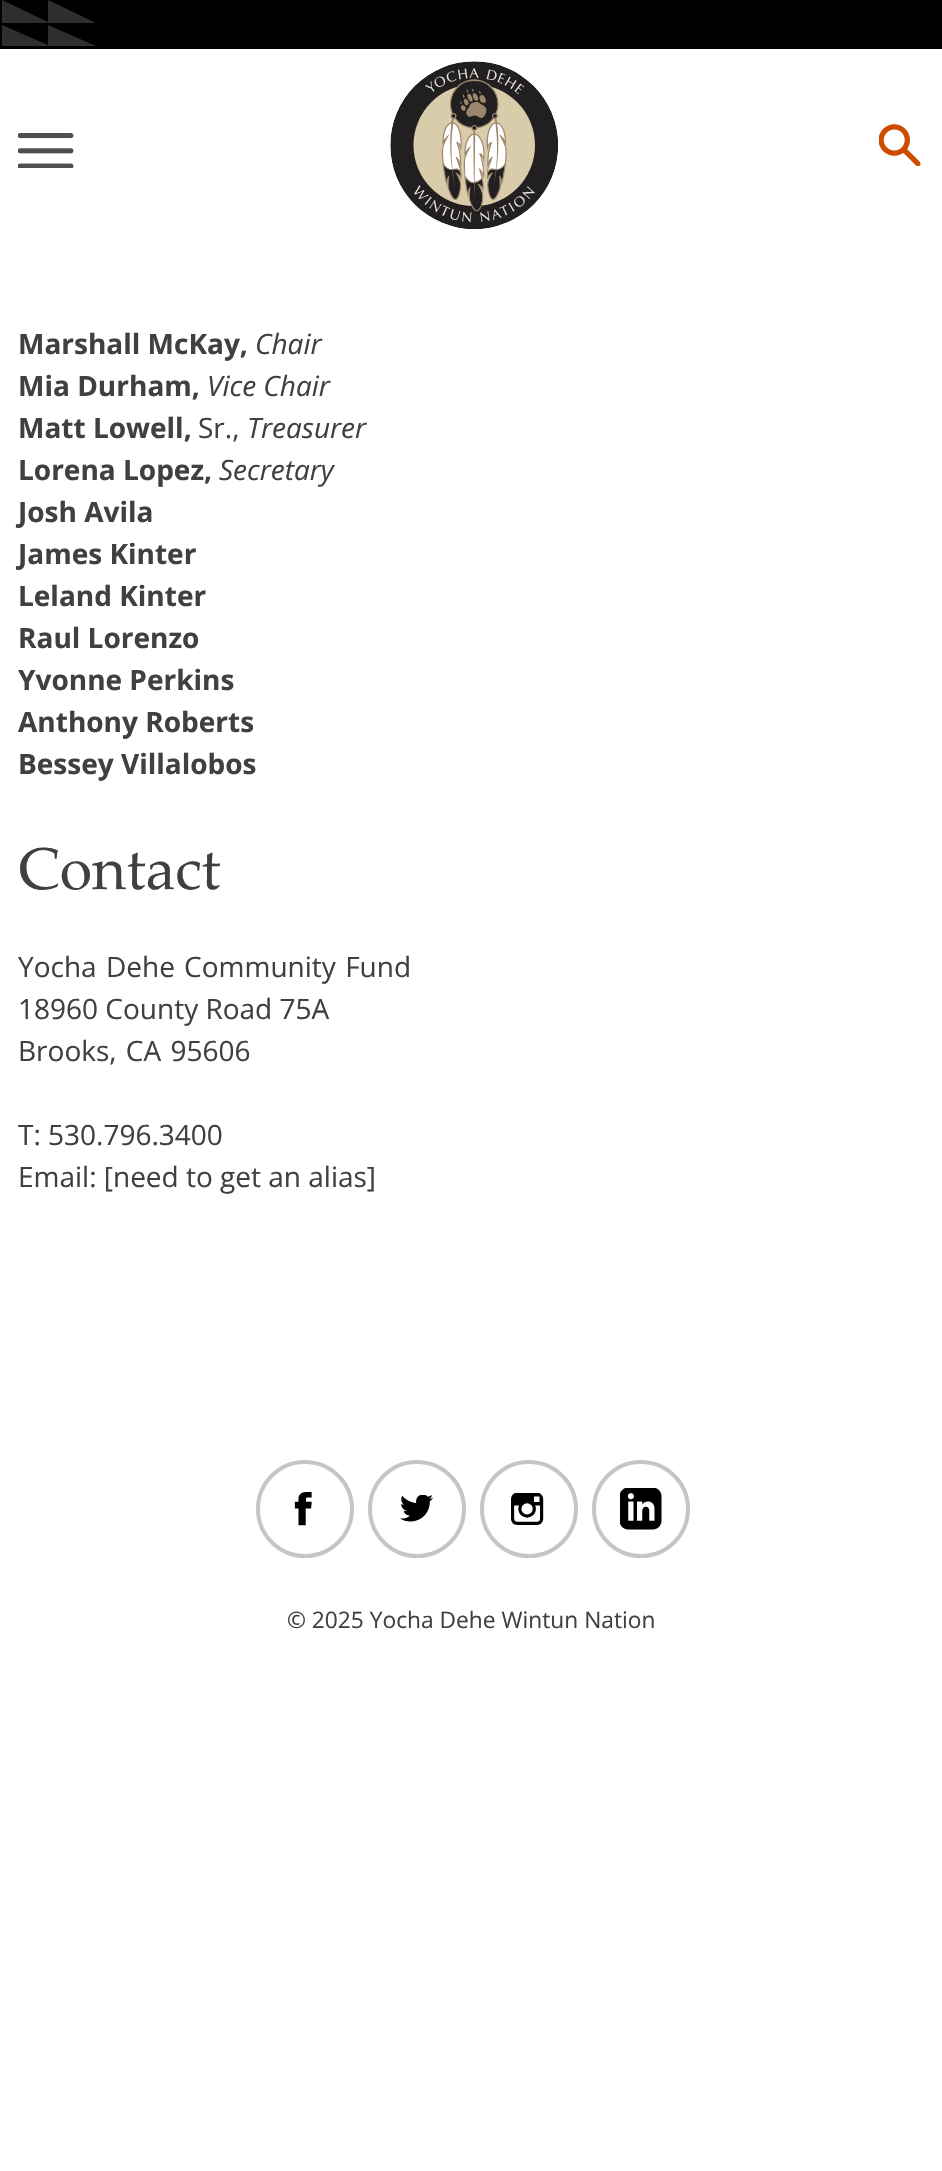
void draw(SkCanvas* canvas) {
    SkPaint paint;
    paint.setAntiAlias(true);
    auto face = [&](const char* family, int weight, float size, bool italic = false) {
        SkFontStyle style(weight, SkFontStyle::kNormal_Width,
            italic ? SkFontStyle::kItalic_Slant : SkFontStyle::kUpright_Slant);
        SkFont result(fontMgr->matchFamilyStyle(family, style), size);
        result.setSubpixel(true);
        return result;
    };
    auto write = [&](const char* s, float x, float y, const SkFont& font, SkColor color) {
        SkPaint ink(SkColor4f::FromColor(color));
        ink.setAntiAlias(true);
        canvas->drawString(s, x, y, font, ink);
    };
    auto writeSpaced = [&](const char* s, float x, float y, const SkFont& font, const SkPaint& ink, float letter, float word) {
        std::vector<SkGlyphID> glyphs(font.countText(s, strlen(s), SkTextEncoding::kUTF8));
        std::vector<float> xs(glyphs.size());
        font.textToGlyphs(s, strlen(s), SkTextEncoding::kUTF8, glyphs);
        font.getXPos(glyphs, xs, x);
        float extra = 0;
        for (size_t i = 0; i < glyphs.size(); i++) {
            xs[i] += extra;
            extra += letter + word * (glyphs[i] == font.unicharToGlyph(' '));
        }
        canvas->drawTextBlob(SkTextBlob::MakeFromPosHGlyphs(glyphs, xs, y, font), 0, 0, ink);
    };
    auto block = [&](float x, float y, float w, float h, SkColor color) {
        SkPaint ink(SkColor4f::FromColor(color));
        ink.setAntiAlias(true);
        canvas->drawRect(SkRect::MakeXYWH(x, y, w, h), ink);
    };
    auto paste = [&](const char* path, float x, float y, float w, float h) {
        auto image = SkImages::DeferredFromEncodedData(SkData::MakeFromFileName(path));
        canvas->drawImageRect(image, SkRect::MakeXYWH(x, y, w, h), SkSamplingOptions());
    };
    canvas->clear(SK_ColorWHITE);
    block(0, 0, 942, 49, SK_ColorBLACK);
    paint.setColor(SkColorSetRGB(46, 46, 46));
    canvas->drawPath(SkPathBuilder(SkPathFillType::kEvenOdd).moveTo(96, 46).lineTo(48, 25).lineTo(48, 45).lineTo(2, 25).lineTo(2, 46).close().moveTo(2, 0).lineTo(2, 23).lineTo(96, 23).lineTo(48, 0).lineTo(48, 22).close().detach(), paint);
    paste("pic1.png", 18, 133, 56, 35);
    paste("pic2.png", 390, 61, 168, 168);
    paste("pic3.png", 879, 124, 42, 42);
    auto kFont1 = face("Open Sans", 700, 28);
    write("Marshall McKay,", 18, 354, kFont1, SkColorSetRGB(64, 64, 64));
    auto kFont2 = face("Open Sans", 400, 28, true);
    write("Chair", 255, 354, kFont2, SkColorSetRGB(64, 64, 64));
    write("Mia Durham,", 18, 396, kFont1, SkColorSetRGB(64, 64, 64));
    write("Vice Chair", 207, 396, kFont2, SkColorSetRGB(64, 64, 64));
    write("Matt Lowell,", 18, 438, kFont1, SkColorSetRGB(64, 64, 64));
    auto kFont3 = face("Open Sans", 400, 28);
    write("Sr.,", 198, 438, kFont3, SkColorSetRGB(64, 64, 64));
    write("Treasurer", 247, 438, kFont2, SkColorSetRGB(64, 64, 64));
    write("Lorena Lopez,", 18, 480, kFont1, SkColorSetRGB(64, 64, 64));
    write("Secretary", 219, 480, kFont2, SkColorSetRGB(64, 64, 64));
    write("Josh Avila", 18, 522, kFont1, SkColorSetRGB(64, 64, 64));
    write("James Kinter", 18, 564, kFont1, SkColorSetRGB(64, 64, 64));
    write("Leland Kinter", 18, 606, kFont1, SkColorSetRGB(64, 64, 64));
    write("Raul Lorenzo", 18, 648, kFont1, SkColorSetRGB(64, 64, 64));
    write("Yvonne Perkins", 18, 690, kFont1, SkColorSetRGB(64, 64, 64));
    write("Anthony Roberts", 18, 732, kFont1, SkColorSetRGB(64, 64, 64));
    write("Bessey Villalobos", 18, 774, kFont1, SkColorSetRGB(64, 64, 64));
    auto kFont4 = face("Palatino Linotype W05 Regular", 400, 59);
    write("Contact", 18, 889, kFont4, SkColorSetRGB(64, 64, 64));
    paint.setColor(SkColorSetRGB(64, 64, 64));
    writeSpaced("Yocha Dehe Community Fund", 18, 977, kFont3, paint, 0, 2);
    write("18960 County Road 75A", 18, 1019, kFont3, SkColorSetRGB(64, 64, 64));
    writeSpaced("Brooks, CA 95606", 18, 1061, kFont3, paint, 0, 2);
    write("T: 530.796.3400", 18, 1145, kFont3, SkColorSetRGB(64, 64, 64));
    write("Email: [need to get an alias]", 18, 1187, kFont3, SkColorSetRGB(64, 64, 64));
    paste("pic4.png", 294, 1492, 18, 34);
    paint.setStyle(SkPaint::kStroke_Style);
    paint.setStrokeWidth(4);
    paint.setColor(SkColorSetRGB(197, 197, 197));
    canvas->drawCircle(305, 1509, 47, paint);
    paste("pic5.png", 400, 1495, 33, 27);
    canvas->drawCircle(417, 1509, 47, paint);
    paste("pic6.png", 511, 1493, 33, 32);
    canvas->drawCircle(529, 1509, 47, paint);
    paste("pic7.png", 620, 1488, 42, 42);
    canvas->drawCircle(641, 1509, 47, paint);
    auto kFont5 = face("Open Sans", 400, 22.75f);
    write("© 2025 Yocha Dehe Wintun Nation", 287, 1628, kFont5, SkColorSetRGB(64, 64, 64));
}
